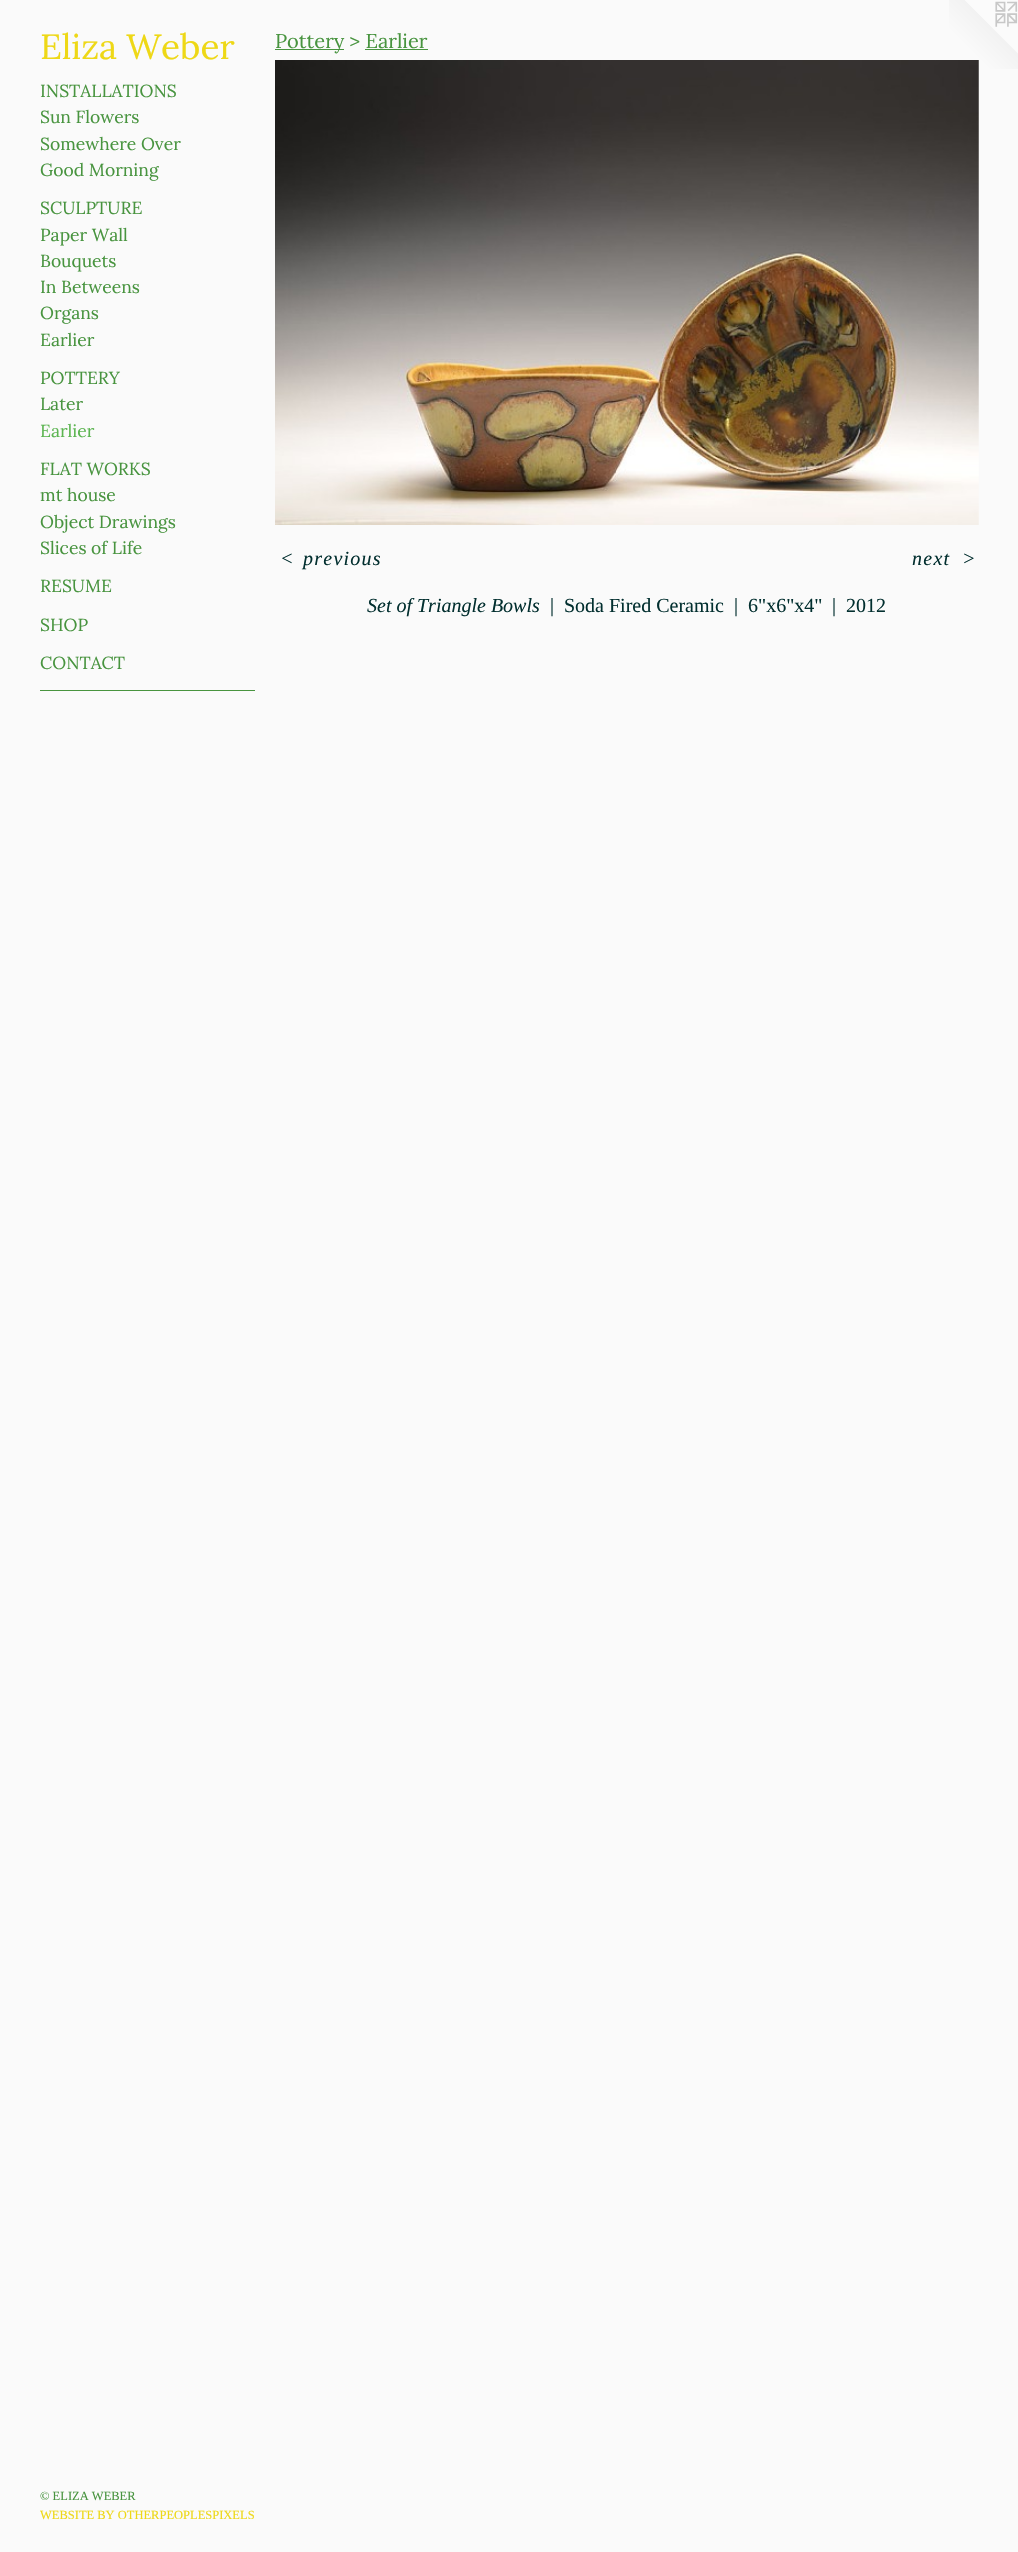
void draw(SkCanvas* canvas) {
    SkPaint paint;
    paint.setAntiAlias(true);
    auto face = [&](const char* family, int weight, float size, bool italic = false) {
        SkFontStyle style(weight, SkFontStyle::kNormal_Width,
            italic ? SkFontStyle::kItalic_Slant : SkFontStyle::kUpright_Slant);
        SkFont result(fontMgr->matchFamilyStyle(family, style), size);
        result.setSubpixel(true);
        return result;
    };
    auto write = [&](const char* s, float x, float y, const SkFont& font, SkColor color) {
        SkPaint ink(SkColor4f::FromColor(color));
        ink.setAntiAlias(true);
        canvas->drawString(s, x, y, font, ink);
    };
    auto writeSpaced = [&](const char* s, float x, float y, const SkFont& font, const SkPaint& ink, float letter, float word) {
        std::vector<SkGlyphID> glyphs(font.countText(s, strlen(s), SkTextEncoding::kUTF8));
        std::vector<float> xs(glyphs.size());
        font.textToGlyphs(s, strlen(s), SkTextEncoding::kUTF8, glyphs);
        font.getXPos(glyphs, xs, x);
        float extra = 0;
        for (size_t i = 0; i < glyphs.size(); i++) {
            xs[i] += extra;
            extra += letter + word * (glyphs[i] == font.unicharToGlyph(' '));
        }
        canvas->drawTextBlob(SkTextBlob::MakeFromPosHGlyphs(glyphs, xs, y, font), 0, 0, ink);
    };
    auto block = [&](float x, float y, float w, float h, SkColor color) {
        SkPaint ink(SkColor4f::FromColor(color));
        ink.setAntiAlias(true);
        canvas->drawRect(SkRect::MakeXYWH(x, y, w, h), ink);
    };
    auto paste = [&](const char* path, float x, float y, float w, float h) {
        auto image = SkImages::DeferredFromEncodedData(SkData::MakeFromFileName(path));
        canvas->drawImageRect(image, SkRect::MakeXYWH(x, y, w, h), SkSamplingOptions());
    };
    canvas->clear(SkColorSetRGB(250, 250, 250));
    auto kFont1 = face("Lora", 400, 35);
    write("Eliza Weber", 40, 59, kFont1, SkColorSetRGB(238, 216, 22));
    auto kFont2 = face("Lora", 400, 17.5f);
    write("INSTALLATIONS", 40, 97, kFont2, SkColorSetRGB(72, 148, 63));
    write("Sun Flowers", 40, 123, kFont2, SkColorSetRGB(72, 148, 63));
    write("Somewhere Over", 40, 150, kFont2, SkColorSetRGB(72, 148, 63));
    write("Good Morning", 40, 176, kFont2, SkColorSetRGB(72, 148, 63));
    write("SCULPTURE", 40, 214, kFont2, SkColorSetRGB(72, 148, 63));
    write("Paper Wall", 40, 241, kFont2, SkColorSetRGB(72, 148, 63));
    write("Bouquets", 40, 267, kFont2, SkColorSetRGB(72, 148, 63));
    write("In Betweens", 40, 293, kFont2, SkColorSetRGB(72, 148, 63));
    write("Organs", 40, 319, kFont2, SkColorSetRGB(72, 148, 63));
    write("Earlier", 40, 346, kFont2, SkColorSetRGB(72, 148, 63));
    write("POTTERY", 40, 384, kFont2, SkColorSetRGB(72, 148, 63));
    write("Later", 40, 410, kFont2, SkColorSetRGB(72, 148, 63));
    write("Earlier", 40, 437, kFont2, SkColorSetRGB(92, 181, 81));
    write("FLAT WORKS", 40, 475, kFont2, SkColorSetRGB(72, 148, 63));
    write("mt house", 40, 501, kFont2, SkColorSetRGB(72, 148, 63));
    write("Object Drawings", 40, 528, kFont2, SkColorSetRGB(72, 148, 63));
    write("Slices of Life", 40, 554, kFont2, SkColorSetRGB(72, 148, 63));
    write("RESUME", 40, 592, kFont2, SkColorSetRGB(72, 148, 63));
    write("SHOP", 40, 631, kFont2, SkColorSetRGB(72, 148, 63));
    write("CONTACT", 40, 669, kFont2, SkColorSetRGB(72, 148, 63));
    block(40, 690, 215, 1, SkColorSetRGB(72, 148, 63));
    auto kFont3 = face("Liberation Serif", 400, 12.5f);
    write("© ELIZA WEBER", 40, 2500, kFont3, SkColorSetRGB(72, 148, 63));
    write("WEBSITE BY OTHERPEOPLESPIXELS", 40, 2519, kFont3, SkColorSetRGB(238, 216, 22));
    block(275, 49, 69, 1, SkColorSetRGB(72, 148, 63));
    auto kFont4 = face("Lora", 400, 20);
    write("Pottery > Earlier", 275, 48, kFont4, SkColorSetRGB(72, 148, 63));
    block(365, 49, 63, 1, SkColorSetRGB(72, 148, 63));
    paste("pic2.png", 949, 0, 69, 69);
    paste("pic1.png", 275, 60, 704, 465);
    auto kFont5 = face("Liberation Serif", 400, 20, true);
    paint.setColor(SkColorSetRGB(2, 47, 47));
    writeSpaced("<", 280, 565, kFont5, paint, 1.25f, 0);
    writeSpaced("previous", 303, 565, kFont5, paint, 1.25f, 0);
    writeSpaced("next", 912, 565, kFont5, paint, 1.25f, 0);
    writeSpaced(">", 962, 565, kFont5, paint, 1.25f, 0);
    write("Set of Triangle Bowls", 367, 612, kFont5, SkColorSetRGB(2, 47, 47));
    auto kFont6 = face("Liberation Serif", 400, 20);
    write("|", 550, 612, kFont6, SkColorSetRGB(2, 47, 47));
    write("Soda Fired Ceramic", 564, 612, kFont6, SkColorSetRGB(2, 47, 47));
    write("|", 734, 612, kFont6, SkColorSetRGB(2, 47, 47));
    write("6\"x6\"x4\"", 748, 612, kFont6, SkColorSetRGB(2, 47, 47));
    write("|", 832, 612, kFont6, SkColorSetRGB(2, 47, 47));
    write("2012", 846, 612, kFont6, SkColorSetRGB(2, 47, 47));
}
